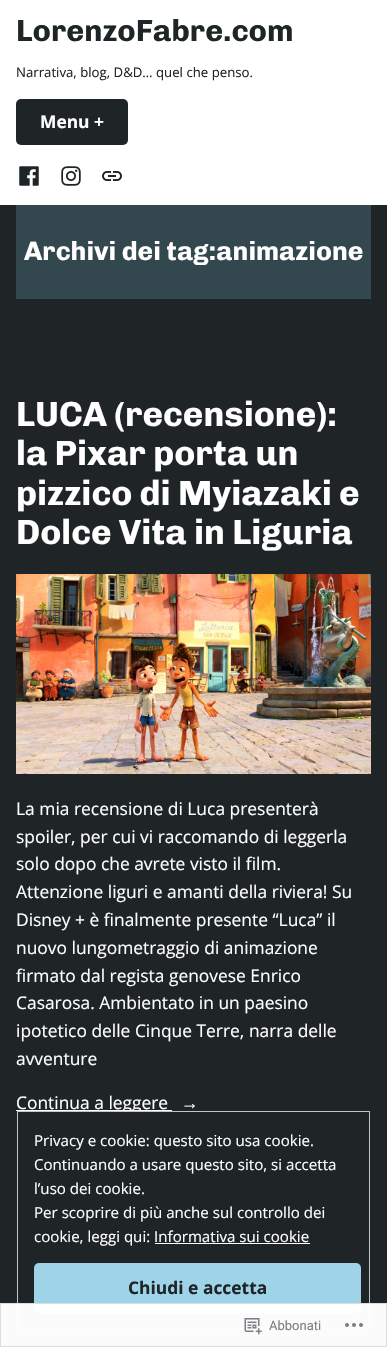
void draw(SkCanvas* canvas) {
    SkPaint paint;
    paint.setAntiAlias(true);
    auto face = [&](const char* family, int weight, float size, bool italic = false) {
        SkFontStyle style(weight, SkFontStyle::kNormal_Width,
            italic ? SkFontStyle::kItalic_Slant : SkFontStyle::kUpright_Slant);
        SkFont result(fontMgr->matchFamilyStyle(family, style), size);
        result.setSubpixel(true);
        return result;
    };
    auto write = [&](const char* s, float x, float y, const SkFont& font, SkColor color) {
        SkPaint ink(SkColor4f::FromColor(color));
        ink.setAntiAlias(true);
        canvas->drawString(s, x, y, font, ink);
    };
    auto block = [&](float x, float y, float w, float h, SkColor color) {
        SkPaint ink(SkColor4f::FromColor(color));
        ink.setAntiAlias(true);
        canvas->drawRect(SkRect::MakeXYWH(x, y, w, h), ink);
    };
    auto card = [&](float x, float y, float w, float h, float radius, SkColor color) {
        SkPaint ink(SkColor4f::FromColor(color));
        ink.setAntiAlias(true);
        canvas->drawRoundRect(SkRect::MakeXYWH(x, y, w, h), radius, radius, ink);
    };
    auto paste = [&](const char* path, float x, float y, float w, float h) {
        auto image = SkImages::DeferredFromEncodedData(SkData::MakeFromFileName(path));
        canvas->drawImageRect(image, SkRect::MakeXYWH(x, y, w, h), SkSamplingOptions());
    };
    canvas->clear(SkColorSetRGB(31, 37, 39));
    block(0, 0, 387, 205, SK_ColorWHITE);
    auto kFont1 = face("Chivo", 700, 30.5f);
    write("LorenzoFabre.com", 16, 41, kFont1, SkColorSetRGB(31, 37, 39));
    auto kFont2 = face("Open Sans", 400, 13.2f);
    write("Narrativa, blog, D&D… quel che penso.", 16, 77, kFont2, SkColorSetRGB(31, 37, 39));
    card(16, 99, 112, 46, 5, SkColorSetRGB(31, 37, 39));
    auto kFont3 = face("Open Sans", 700, 17.4f);
    write("Menu +", 40, 128, kFont3, SK_ColorWHITE);
    paste("pic1.png", 19, 166, 20, 20);
    paste("pic2.png", 61, 166, 20, 20);
    paste("pic3.png", 102, 171, 20, 10);
    block(16, 205, 355, 94, SkColorSetRGB(51, 71, 78));
    auto kFont4 = face("Chivo", 700, 26.5f);
    write("Archivi dei tag:animazione", 24, 260, kFont4, SK_ColorWHITE);
    auto kFont5 = face("Chivo", 700, 35);
    write("LUCA (recensione):", 16, 426, kFont5, SK_ColorWHITE);
    write("la Pixar porta un", 16, 465, kFont5, SK_ColorWHITE);
    write("pizzico di Myiazaki e", 16, 505, kFont5, SK_ColorWHITE);
    write("Dolce Vita in Liguria", 16, 544, kFont5, SK_ColorWHITE);
    paste("pic4.png", 16, 574, 355, 200);
    auto kFont6 = face("Open Sans", 400, 17.4f);
    write("La mia recensione di Luca presenterà", 16, 815, kFont6, SK_ColorWHITE);
    write("spoiler, per cui vi raccomando di leggerla", 16, 843, kFont6, SK_ColorWHITE);
    write("solo dopo che avrete visto il film.", 16, 870, kFont6, SK_ColorWHITE);
    write("Attenzione liguri e amanti della riviera! Su", 16, 898, kFont6, SK_ColorWHITE);
    write("Disney + è finalmente presente “Luca” il", 16, 926, kFont6, SK_ColorWHITE);
    write("nuovo lungometraggio di animazione", 16, 954, kFont6, SK_ColorWHITE);
    write("firmato dal regista genovese Enrico", 16, 982, kFont6, SK_ColorWHITE);
    write("Casarosa. Ambientato in un paesino", 16, 1009, kFont6, SK_ColorWHITE);
    write("ipotetico delle Cinque Terre, narra delle", 16, 1037, kFont6, SK_ColorWHITE);
    write("avventure", 16, 1065, kFont6, SK_ColorWHITE);
    block(16, 1110, 156, 1, SK_ColorWHITE);
    write("Continua a leggere", 16, 1109, kFont6, SK_ColorWHITE);
    auto kFont7 = face("Liberation Serif", 400, 17.4f);
    write("→", 181, 1109, kFont7, SK_ColorWHITE);
    block(123, 1112, 17, 2, SkColorSetRGB(31, 37, 39));
    paint.setStyle(SkPaint::kStroke_Style);
    paint.setStrokeWidth(1);
    paint.setColor(SkColorSetRGB(197, 197, 197));
    canvas->drawRect(SkRect::MakeXYWH(17.5f, 1111.5f, 352, 218), paint);
    auto kFont8 = face("Open Sans", 400, 15.1f);
    write("Privacy e cookie: questo sito usa cookie.", 34, 1146, kFont8, SK_ColorWHITE);
    write("Continuando a usare questo sito, si accetta", 34, 1170, kFont8, SK_ColorWHITE);
    write("l’uso dei cookie.", 34, 1194, kFont8, SK_ColorWHITE);
    write("Per scoprire di più anche sul controllo dei", 34, 1218, kFont8, SK_ColorWHITE);
    write("cookie, leggi qui: Informativa sui cookie", 34, 1242, kFont8, SK_ColorWHITE);
    block(155, 1243, 155, 1, SK_ColorWHITE);
    card(34, 1263, 327, 50, 5, SkColorSetRGB(159, 211, 232));
    write("Chiudi e accetta", 128, 1294, kFont3, SkColorSetRGB(31, 37, 39));
    block(0, 1303, 387, 44, SkColorSetARGB(250, 255, 255, 255));
    paint.setColor(SkColorSetARGB(250, 220, 220, 222));
    canvas->drawRect(SkRect::MakeXYWH(0.5f, 1303.5f, 386, 43), paint);
    paste("pic5.png", 244, 1318, 18, 17);
    auto kFont9 = face("Roboto", 400, 13);
    write("Abbonati", 269, 1330, kFont9, SkColorSetRGB(123, 127, 132));
    paste("pic6.png", 345, 1323, 18, 4);
}
